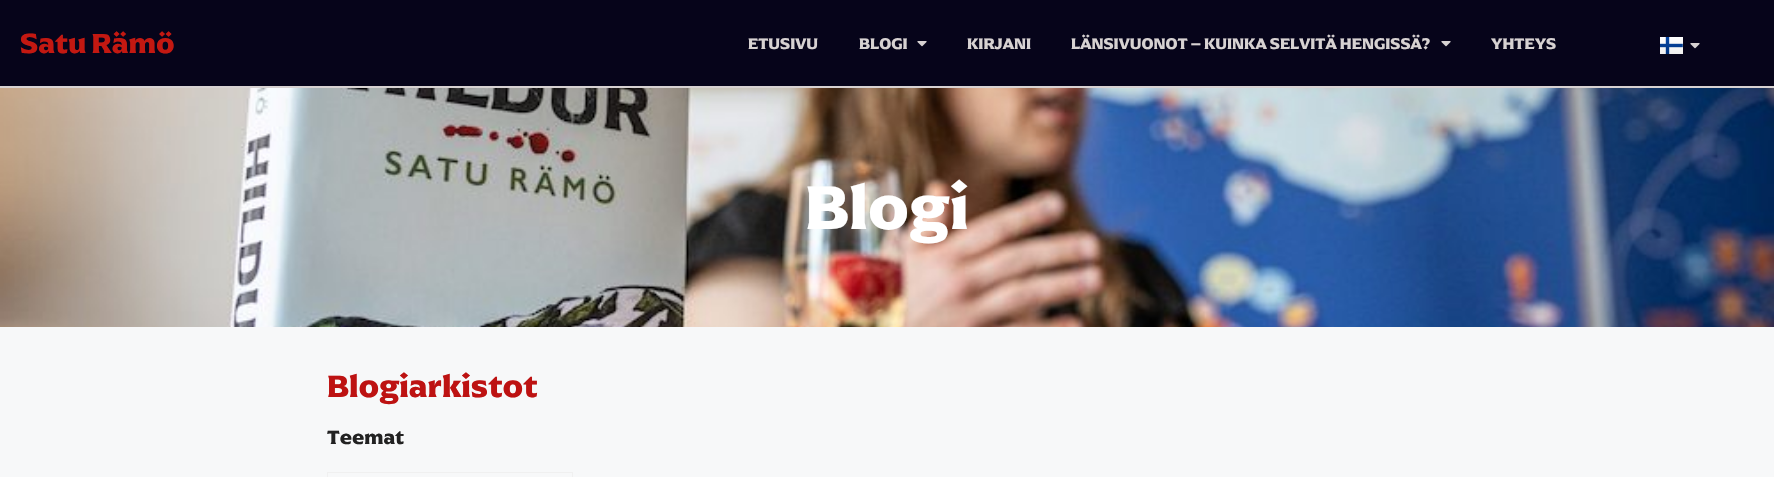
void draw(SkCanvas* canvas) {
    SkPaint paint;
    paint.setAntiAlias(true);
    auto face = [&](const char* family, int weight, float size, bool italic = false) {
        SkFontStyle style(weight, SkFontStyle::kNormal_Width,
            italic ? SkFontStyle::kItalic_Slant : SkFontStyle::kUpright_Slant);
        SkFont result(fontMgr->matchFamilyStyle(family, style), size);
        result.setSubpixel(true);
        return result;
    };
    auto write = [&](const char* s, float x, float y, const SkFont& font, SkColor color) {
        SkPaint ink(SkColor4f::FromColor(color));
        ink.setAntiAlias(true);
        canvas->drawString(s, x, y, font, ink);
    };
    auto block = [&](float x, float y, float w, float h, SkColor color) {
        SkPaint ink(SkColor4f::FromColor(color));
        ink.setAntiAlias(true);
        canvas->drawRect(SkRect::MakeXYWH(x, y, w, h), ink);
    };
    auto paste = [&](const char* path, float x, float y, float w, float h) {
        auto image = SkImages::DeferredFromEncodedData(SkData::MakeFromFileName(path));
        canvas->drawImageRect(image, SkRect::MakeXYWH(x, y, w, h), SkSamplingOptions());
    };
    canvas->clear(SkColorSetRGB(247, 248, 249));
    block(0, 0, 1774, 86, SkColorSetRGB(6, 4, 26));
    block(0, 86, 1774, 2, SkColorSetRGB(215, 210, 210));
    auto kFont1 = face("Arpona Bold", 700, 28.75f);
    write("Satu Rämö", 20, 53, kFont1, SkColorSetRGB(195, 24, 17));
    auto kFont2 = face("Arpona Bold", 700, 16);
    write("ETUSIVU", 748, 49, kFont2, SkColorSetRGB(215, 210, 210));
    write("BLOGI", 859, 49, kFont2, SkColorSetRGB(215, 210, 210));
    paste("pic1.png", 917, 41, 10, 6);
    write("KIRJANI", 967, 49, kFont2, SkColorSetRGB(215, 210, 210));
    write("LÄNSIVUONOT – KUINKA SELVITÄ HENGISSÄ?", 1071, 49, kFont2, SkColorSetRGB(215, 210, 210));
    paste("pic1.png", 1441, 41, 10, 6);
    write("YHTEYS", 1491, 49, kFont2, SkColorSetRGB(215, 210, 210));
    paste("pic2.png", 1660, 37, 23, 17);
    paste("pic1.png", 1690, 43, 10, 6);
    paste("pic3.png", 0, 88, 1774, 239);
    auto kFont3 = face("Arpona Bold", 700, 64);
    write("Blogi", 805, 229, kFont3, SK_ColorWHITE);
    auto kFont4 = face("Arpona Bold", 700, 32);
    write("Blogiarkistot", 327, 397, kFont4, SkColorSetRGB(189, 18, 18));
    auto kFont5 = face("Arpona Bold", 700, 20);
    write("Teemat", 327, 444, kFont5, SkColorSetRGB(34, 34, 34));
    paint.setStyle(SkPaint::kStroke_Style);
    paint.setStrokeWidth(1);
    paint.setColor(SkColorSetRGB(240, 240, 240));
    canvas->drawRect(SkRect::MakeXYWH(327.5f, 472.5f, 245, 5), paint);
}
